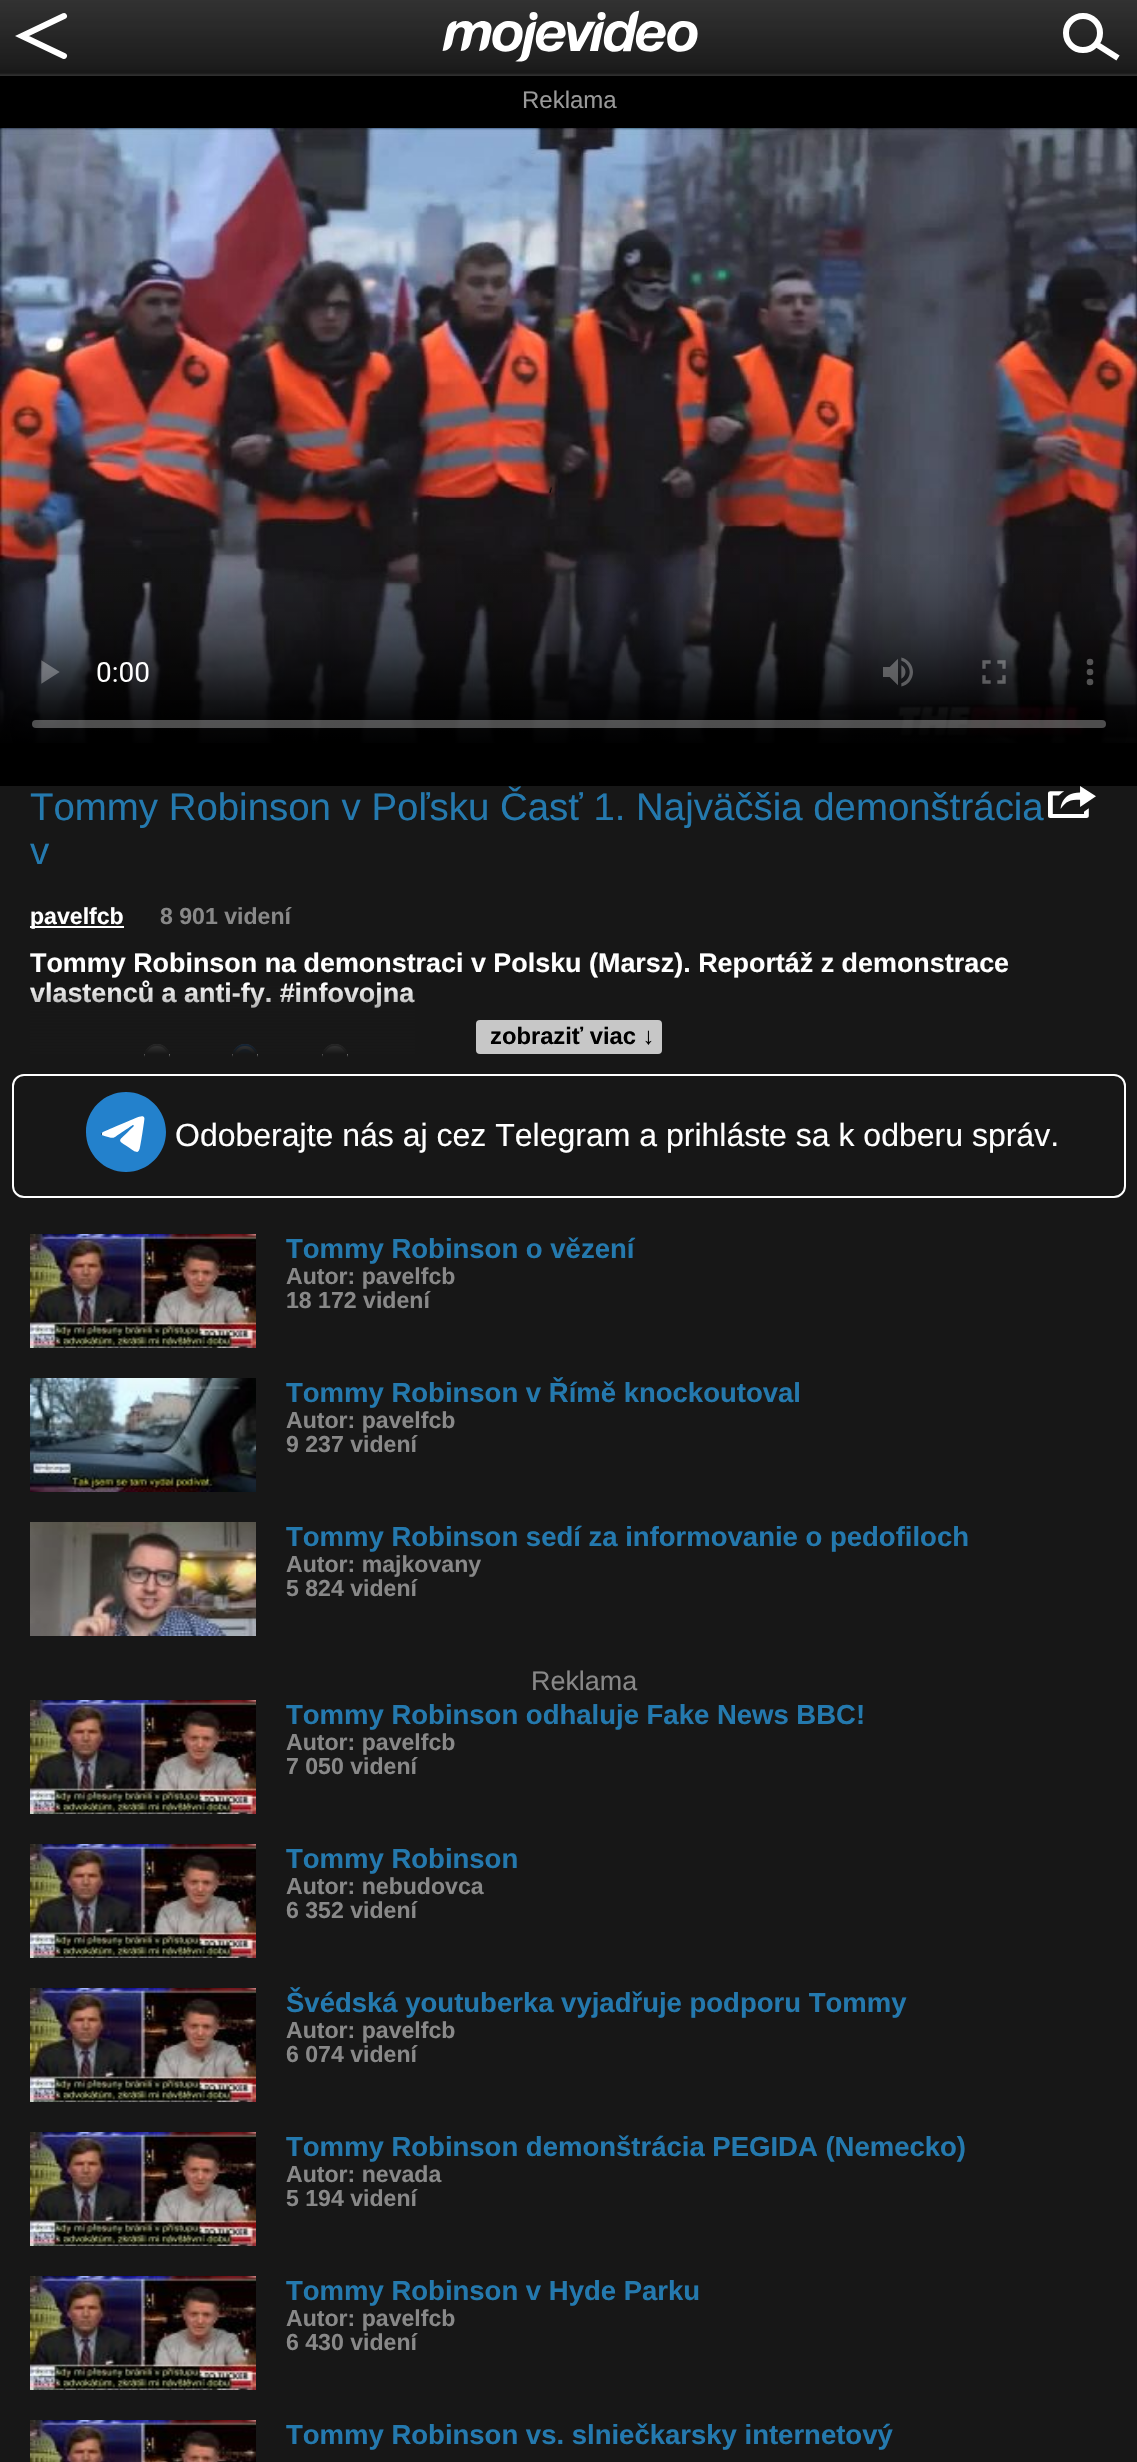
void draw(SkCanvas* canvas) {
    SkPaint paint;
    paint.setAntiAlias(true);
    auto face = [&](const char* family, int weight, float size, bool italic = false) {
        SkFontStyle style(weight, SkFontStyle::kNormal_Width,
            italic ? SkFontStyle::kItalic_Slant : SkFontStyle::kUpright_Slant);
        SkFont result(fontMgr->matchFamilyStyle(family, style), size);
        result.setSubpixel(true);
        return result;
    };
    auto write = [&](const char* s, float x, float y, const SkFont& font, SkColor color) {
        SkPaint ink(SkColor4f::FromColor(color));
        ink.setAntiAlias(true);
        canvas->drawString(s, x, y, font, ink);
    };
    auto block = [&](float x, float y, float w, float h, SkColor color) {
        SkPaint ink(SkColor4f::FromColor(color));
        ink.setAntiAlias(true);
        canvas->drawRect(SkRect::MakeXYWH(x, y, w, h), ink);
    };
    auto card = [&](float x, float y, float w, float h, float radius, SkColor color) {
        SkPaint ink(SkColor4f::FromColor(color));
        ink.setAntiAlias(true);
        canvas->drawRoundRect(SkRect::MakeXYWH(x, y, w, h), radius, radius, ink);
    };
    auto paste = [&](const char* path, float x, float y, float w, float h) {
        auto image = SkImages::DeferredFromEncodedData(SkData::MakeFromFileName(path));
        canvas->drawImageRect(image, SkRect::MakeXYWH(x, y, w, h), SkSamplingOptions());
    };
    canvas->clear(SK_ColorBLACK);
    paste("pic1.png", 0, 0, 1137, 76);
    paste("pic2.png", 15, 13, 53, 46);
    paste("pic3.png", 442, 10, 256, 52);
    paste("pic4.png", 1063, 13, 57, 48);
    auto kFont1 = face("Liberation Sans", 400, 24);
    write("Reklama", 522, 108, kFont1, SkColorSetRGB(153, 153, 153));
    paste("pic5.png", 0, 128, 1137, 615);
    block(0, 786, 1137, 1676, SkColorSetRGB(23, 23, 23));
    auto kFont2 = face("Liberation Sans", 400, 38.4f);
    write("Tommy Robinson v Poľsku Časť 1. Najväčšia demonštrácia", 30, 820, kFont2, SkColorSetRGB(36, 121, 174));
    write("v", 30, 864, kFont2, SkColorSetRGB(36, 121, 174));
    paste("pic6.png", 1048, 786, 48, 32);
    block(30, 926, 94, 2, SK_ColorWHITE);
    auto kFont3 = face("Liberation Sans", 700, 23.1f);
    write("pavelfcb", 30, 924, kFont3, SK_ColorWHITE);
    write("8 901 videní", 160, 924, kFont3, SkColorSetRGB(136, 136, 136));
    auto kFont4 = face("Liberation Sans", 700, 26.9f);
    write("Tommy Robinson na demonstraci v Polsku (Marsz). Reportáž z demonstrace", 30, 972, kFont4, SK_ColorWHITE);
    write("vlastenců a anti-fy. #infovojna", 30, 1002, kFont4, SK_ColorWHITE);
    paint.setColor(SK_ColorWHITE);
    canvas->drawPath(SkPathBuilder().moveTo(157, 1044).cubicTo(164, 1044, 170, 1050, 170, 1057).lineTo(170, 1054).lineTo(144, 1054).lineTo(144, 1057).cubicTo(144, 1050, 150, 1044, 157, 1044).close().detach(), paint);
    canvas->save();
    canvas->clipRect(SkRect::MakeXYWH(0, 874, 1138, 180));
    paint.setStyle(SkPaint::kStroke_Style);
    paint.setStrokeWidth(2);
    paint.setColor(SkColorSetRGB(118, 118, 118));
    canvas->drawCircle(157, 1057, 12, paint);
    canvas->restore();
    paint.setStyle(SkPaint::kFill_Style);
    paint.setColor(SK_ColorWHITE);
    canvas->drawPath(SkPathBuilder().moveTo(245, 1044).cubicTo(252, 1044, 258, 1050, 258, 1057).lineTo(258, 1054).lineTo(232, 1054).lineTo(232, 1057).cubicTo(232, 1050, 238, 1044, 245, 1044).close().detach(), paint);
    canvas->save();
    canvas->clipRect(SkRect::MakeXYWH(0, 874, 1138, 180));
    paint.setStyle(SkPaint::kStroke_Style);
    paint.setColor(SkColorSetRGB(0, 117, 255));
    canvas->drawCircle(245, 1057, 12, paint);
    paint.setStyle(SkPaint::kFill_Style);
    canvas->drawCircle(245, 1057, 8, paint);
    canvas->restore();
    paint.setColor(SK_ColorWHITE);
    canvas->drawPath(SkPathBuilder().moveTo(335, 1044).cubicTo(342, 1044, 348, 1050, 348, 1057).lineTo(348, 1054).lineTo(322, 1054).lineTo(322, 1057).cubicTo(322, 1050, 328, 1044, 335, 1044).close().detach(), paint);
    canvas->save();
    canvas->clipRect(SkRect::MakeXYWH(0, 874, 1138, 180));
    paint.setStyle(SkPaint::kStroke_Style);
    paint.setColor(SkColorSetRGB(118, 118, 118));
    canvas->drawCircle(335, 1057, 12, paint);
    canvas->restore();
    paint.setStyle(SkPaint::kFill_Style);
    {
        const SkColor colors[] = {SkColorSetARGB(0, 23, 23, 23), SkColorSetRGB(23, 23, 23)};
        const float stops[] = {0, 1};
        const SkPoint ends[] = {{569, 984}, {569, 1054}};
        paint.setShader(SkGradientShader::MakeLinear(ends, colors, stops, 2, SkTileMode::kClamp));
        paint.setAlpha(255);
    }
    canvas->drawRect(SkRect::MakeXYWH(30, 986, 385, 68), paint);
    card(476, 1020, 186, 34, 4, SkColorSetRGB(199, 199, 199));
    auto kFont5 = face("Liberation Sans", 700, 23.75f);
    write("zobraziť viac ↓", 490, 1044, kFont5, SK_ColorBLACK);
    paint.setStyle(SkPaint::kStroke_Style);
    paint.setShader(nullptr);
    paint.setColor(SK_ColorWHITE);
    canvas->drawRoundRect(SkRect::MakeXYWH(13, 1075, 1112, 122), 11, 11, paint);
    paste("pic7.png", 86, 1092, 80, 80);
    auto kFont6 = face("Liberation Sans", 400, 32);
    write("Odoberajte nás aj cez Telegram a prihláste sa k odberu správ.", 175, 1146, kFont6, SK_ColorWHITE);
    paste("pic8.png", 30, 1234, 226, 114);
    auto kFont7 = face("Liberation Sans", 700, 27.5f);
    write("Tommy Robinson o vězení", 286, 1258, kFont7, SkColorSetRGB(36, 121, 174));
    write("Autor: pavelfcb", 286, 1284, kFont3, SkColorSetRGB(136, 136, 136));
    write("18 172 videní", 286, 1308, kFont3, SkColorSetRGB(136, 136, 136));
    paste("pic9.png", 30, 1378, 226, 114);
    write("Tommy Robinson v Římě knockoutoval", 286, 1402, kFont7, SkColorSetRGB(36, 121, 174));
    write("Autor: pavelfcb", 286, 1428, kFont3, SkColorSetRGB(136, 136, 136));
    write("9 237 videní", 286, 1452, kFont3, SkColorSetRGB(136, 136, 136));
    paste("pic10.png", 30, 1522, 226, 114);
    write("Tommy Robinson sedí za informovanie o pedofiloch", 286, 1546, kFont7, SkColorSetRGB(36, 121, 174));
    write("Autor: majkovany", 286, 1572, kFont3, SkColorSetRGB(136, 136, 136));
    write("5 824 videní", 286, 1596, kFont3, SkColorSetRGB(136, 136, 136));
    auto kFont8 = face("Liberation Sans", 400, 26.9f);
    write("Reklama", 531, 1690, kFont8, SkColorSetRGB(136, 136, 136));
    paste("pic11.png", 30, 1700, 226, 114);
    write("Tommy Robinson odhaluje Fake News BBC!", 286, 1724, kFont7, SkColorSetRGB(36, 121, 174));
    write("Autor: pavelfcb", 286, 1750, kFont3, SkColorSetRGB(136, 136, 136));
    write("7 050 videní", 286, 1774, kFont3, SkColorSetRGB(136, 136, 136));
    paste("pic12.png", 30, 1844, 226, 114);
    write("Tommy Robinson", 286, 1868, kFont7, SkColorSetRGB(36, 121, 174));
    write("Autor: nebudovca", 286, 1894, kFont3, SkColorSetRGB(136, 136, 136));
    write("6 352 videní", 286, 1918, kFont3, SkColorSetRGB(136, 136, 136));
    paste("pic13.png", 30, 1988, 226, 114);
    write("Švédská youtuberka vyjadřuje podporu Tommy", 286, 2012, kFont7, SkColorSetRGB(36, 121, 174));
    write("Autor: pavelfcb", 286, 2038, kFont3, SkColorSetRGB(136, 136, 136));
    write("6 074 videní", 286, 2062, kFont3, SkColorSetRGB(136, 136, 136));
    paste("pic14.png", 30, 2132, 226, 114);
    write("Tommy Robinson demonštrácia PEGIDA (Nemecko)", 286, 2156, kFont7, SkColorSetRGB(36, 121, 174));
    write("Autor: nevada", 286, 2182, kFont3, SkColorSetRGB(136, 136, 136));
    write("5 194 videní", 286, 2206, kFont3, SkColorSetRGB(136, 136, 136));
    paste("pic15.png", 30, 2276, 226, 114);
    write("Tommy Robinson v Hyde Parku", 286, 2300, kFont7, SkColorSetRGB(36, 121, 174));
    write("Autor: pavelfcb", 286, 2326, kFont3, SkColorSetRGB(136, 136, 136));
    write("6 430 videní", 286, 2350, kFont3, SkColorSetRGB(136, 136, 136));
    paste("pic16.png", 30, 2420, 226, 42);
    write("Tommy Robinson vs. slniečkarsky internetový", 286, 2444, kFont7, SkColorSetRGB(36, 121, 174));
}
